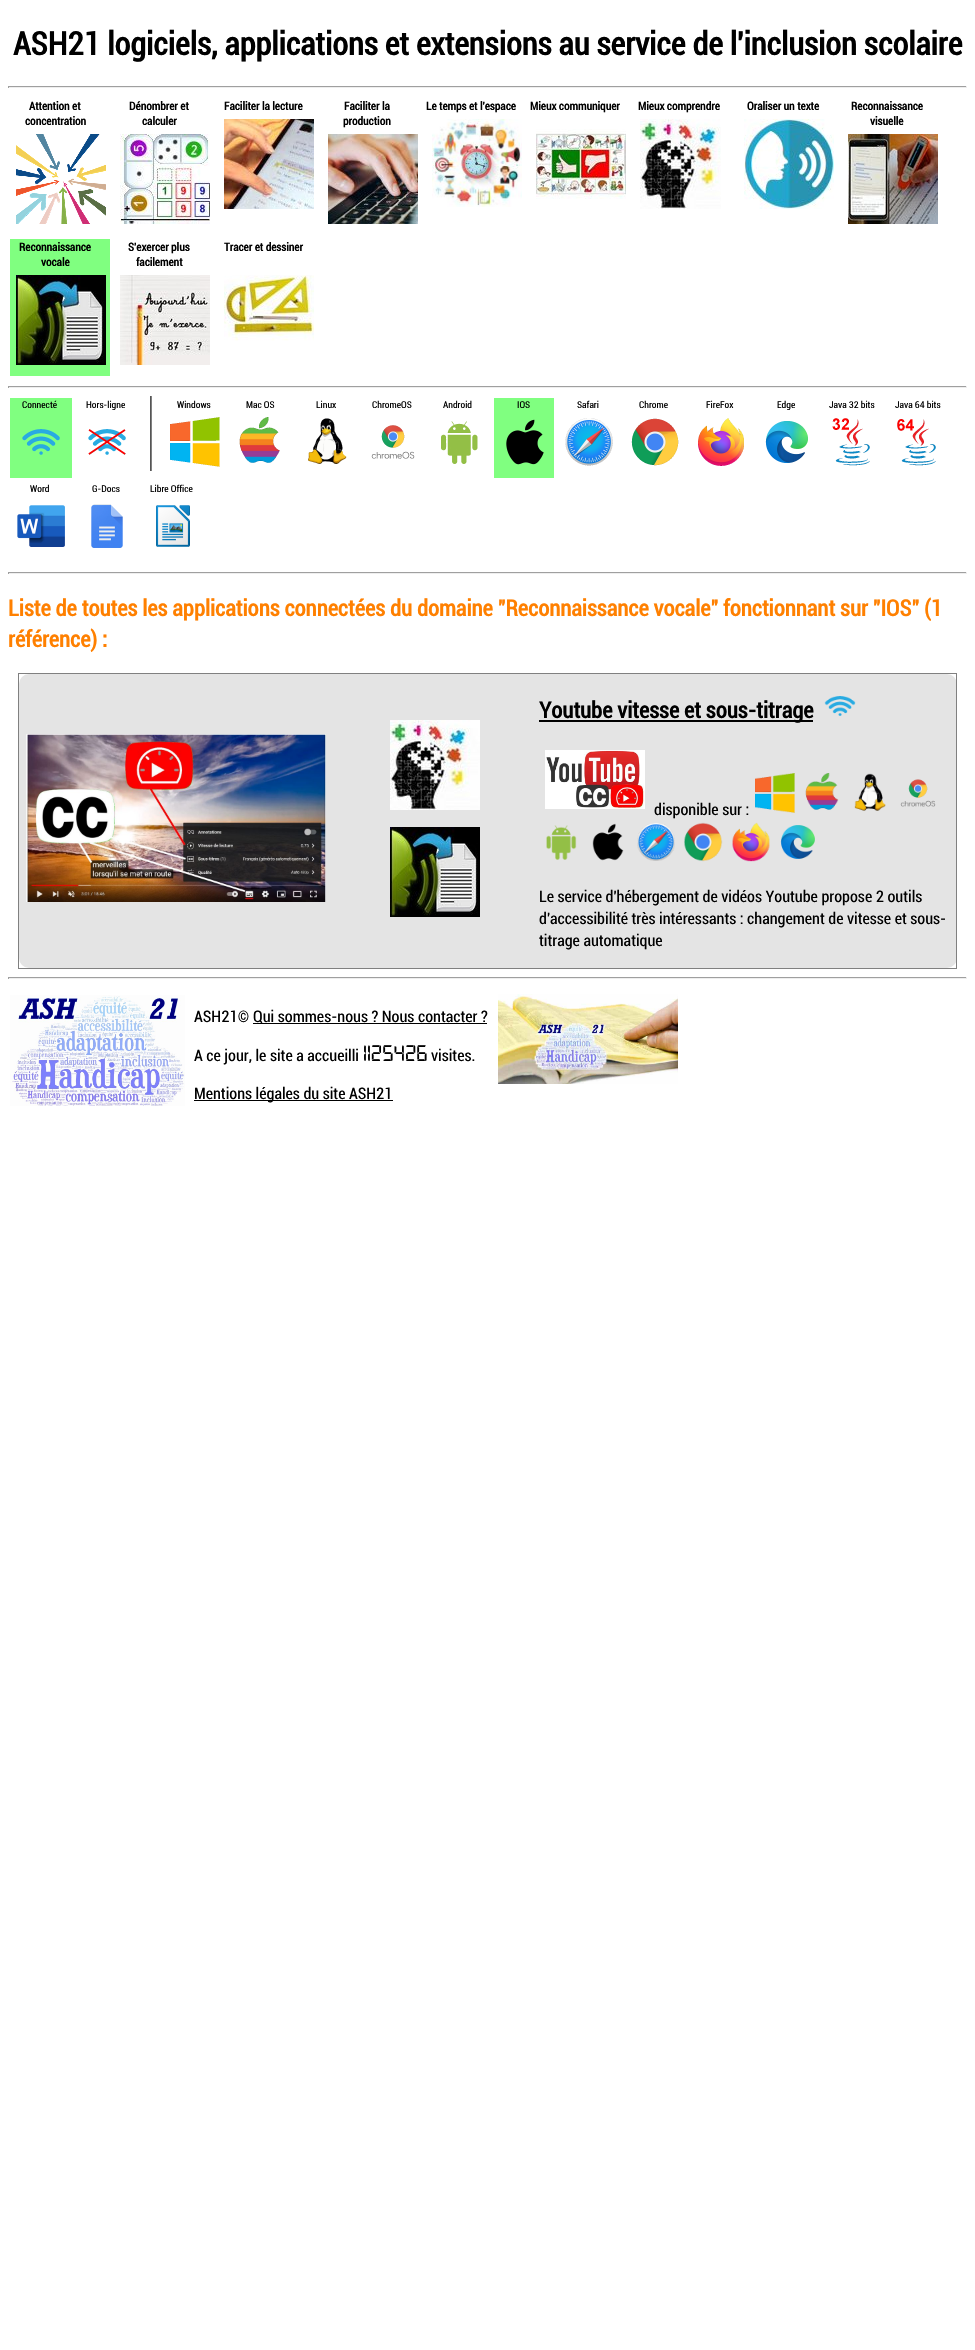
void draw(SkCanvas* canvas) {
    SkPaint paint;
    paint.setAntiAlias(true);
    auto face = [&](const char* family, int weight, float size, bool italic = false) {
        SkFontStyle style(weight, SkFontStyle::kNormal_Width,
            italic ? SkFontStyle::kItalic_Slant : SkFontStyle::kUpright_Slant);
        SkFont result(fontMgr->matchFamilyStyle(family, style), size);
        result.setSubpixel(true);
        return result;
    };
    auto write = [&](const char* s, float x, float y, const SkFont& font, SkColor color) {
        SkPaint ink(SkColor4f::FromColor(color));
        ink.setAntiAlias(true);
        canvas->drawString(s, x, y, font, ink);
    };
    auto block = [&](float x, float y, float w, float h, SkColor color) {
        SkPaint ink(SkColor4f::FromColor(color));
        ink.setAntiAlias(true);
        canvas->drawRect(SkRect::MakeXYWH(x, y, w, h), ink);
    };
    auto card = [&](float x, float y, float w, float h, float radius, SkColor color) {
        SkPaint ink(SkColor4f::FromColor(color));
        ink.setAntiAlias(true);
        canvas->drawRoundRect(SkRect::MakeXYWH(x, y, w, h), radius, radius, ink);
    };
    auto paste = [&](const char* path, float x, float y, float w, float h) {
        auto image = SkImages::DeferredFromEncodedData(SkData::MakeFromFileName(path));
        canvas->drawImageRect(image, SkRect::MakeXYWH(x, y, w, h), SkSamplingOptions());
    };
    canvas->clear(SK_ColorWHITE);
    auto kFont1 = face("Roboto", 700, 32);
    write("ASH21 logiciels, applications et extensions au service de l'inclusion scolaire", 13, 55, kFont1, SK_ColorBLACK);
    block(8, 86, 959, 1, SkColorSetRGB(159, 159, 159));
    block(966, 86, 1, 2, SkColorSetRGB(238, 238, 238));
    block(8, 87, 959, 1, SkColorSetRGB(238, 238, 238));
    block(8, 86, 1, 2, SkColorSetRGB(159, 159, 159));
    auto kFont2 = face("Roboto", 700, 11.25f);
    write("Attention et", 29, 110, kFont2, SK_ColorBLACK);
    write("concentration", 25, 125, kFont2, SK_ColorBLACK);
    paste("pic1.png", 16, 134, 90, 90);
    write("Dénombrer et", 129, 110, kFont2, SK_ColorBLACK);
    write("calculer", 142, 125, kFont2, SK_ColorBLACK);
    paste("pic2.png", 120, 134, 90, 90);
    write("Faciliter la lecture", 224, 110, kFont2, SK_ColorBLACK);
    paste("pic3.png", 224, 119, 90, 90);
    write("Faciliter la", 344, 110, kFont2, SK_ColorBLACK);
    write("production", 343, 125, kFont2, SK_ColorBLACK);
    paste("pic4.png", 328, 134, 90, 90);
    write("Le temps et l'espace", 426, 110, kFont2, SK_ColorBLACK);
    paste("pic5.png", 432, 119, 90, 88);
    write("Mieux communiquer", 530, 110, kFont2, SK_ColorBLACK);
    paste("pic6.png", 536, 129, 90, 70);
    write("Mieux comprendre", 638, 110, kFont2, SK_ColorBLACK);
    paste("pic7.png", 640, 119, 81, 90);
    write("Oraliser un texte", 747, 110, kFont2, SK_ColorBLACK);
    paste("pic8.png", 744, 119, 90, 90);
    write("Reconnaissance", 851, 110, kFont2, SK_ColorBLACK);
    write("visuelle", 870, 125, kFont2, SK_ColorBLACK);
    paste("pic9.png", 848, 134, 90, 90);
    block(10, 239, 100, 137, SkColorSetRGB(128, 255, 128));
    write("Reconnaissance", 19, 251, kFont2, SK_ColorBLACK);
    write("vocale", 41, 266, kFont2, SK_ColorBLACK);
    paste("pic10.png", 16, 275, 90, 90);
    write("S'exercer plus", 128, 251, kFont2, SK_ColorBLACK);
    write("facilement", 136, 266, kFont2, SK_ColorBLACK);
    paste("pic11.png", 120, 275, 90, 90);
    write("Tracer et dessiner", 224, 251, kFont2, SK_ColorBLACK);
    paste("pic12.png", 224, 275, 90, 66);
    block(8, 386, 959, 1, SkColorSetRGB(159, 159, 159));
    block(966, 386, 1, 2, SkColorSetRGB(238, 238, 238));
    block(8, 387, 959, 1, SkColorSetRGB(238, 238, 238));
    block(8, 386, 1, 2, SkColorSetRGB(159, 159, 159));
    block(10, 398, 62, 80, SkColorSetRGB(128, 255, 128));
    auto kFont3 = face("Roboto", 400, 9.5f);
    write("Connecté", 22, 408, kFont3, SK_ColorBLACK);
    paste("pic13.png", 22, 429, 38, 26);
    write("Hors-ligne", 86, 408, kFont3, SK_ColorBLACK);
    paste("pic14.png", 88, 429, 38, 26);
    paste("pic15.png", 150, 396, 2, 75);
    write("Windows", 177, 408, kFont3, SK_ColorBLACK);
    paste("pic16.png", 170, 417, 50, 50);
    write("Mac OS", 246, 408, kFont3, SK_ColorBLACK);
    paste("pic17.png", 239, 417, 41, 46);
    write("Linux", 316, 408, kFont3, SK_ColorBLACK);
    paste("pic18.png", 308, 418, 39, 46);
    write("ChromeOS", 372, 408, kFont3, SK_ColorBLACK);
    paste("pic19.png", 371, 425, 44, 34);
    write("Android", 443, 408, kFont3, SK_ColorBLACK);
    paste("pic20.png", 441, 421, 37, 43);
    block(494, 398, 60, 80, SkColorSetRGB(128, 255, 128));
    write("IOS", 517, 408, kFont3, SK_ColorBLACK);
    paste("pic21.png", 506, 419, 38, 46);
    write("Safari", 577, 408, kFont3, SK_ColorBLACK);
    paste("pic22.png", 565, 418, 48, 48);
    write("Chrome", 639, 408, kFont3, SK_ColorBLACK);
    paste("pic23.png", 631, 418, 48, 48);
    write("FireFox", 706, 408, kFont3, SK_ColorBLACK);
    paste("pic24.png", 698, 418, 46, 48);
    write("Edge", 777, 408, kFont3, SK_ColorBLACK);
    paste("pic25.png", 765, 421, 43, 42);
    write("Java 32 bits", 829, 408, kFont3, SK_ColorBLACK);
    paste("pic26.png", 832, 418, 38, 48);
    write("Java 64 bits", 895, 408, kFont3, SK_ColorBLACK);
    paste("pic27.png", 897, 419, 39, 47);
    write("Word", 30, 492, kFont3, SK_ColorBLACK);
    paste("pic28.png", 17, 505, 48, 42);
    write("G-Docs", 92, 492, kFont3, SK_ColorBLACK);
    paste("pic29.png", 91, 504, 32, 44);
    write("Libre Office", 150, 492, kFont3, SK_ColorBLACK);
    paste("pic30.png", 156, 505, 34, 42);
    block(8, 572, 959, 1, SkColorSetRGB(159, 159, 159));
    block(966, 572, 1, 2, SkColorSetRGB(238, 238, 238));
    block(8, 573, 959, 1, SkColorSetRGB(238, 238, 238));
    block(8, 572, 1, 2, SkColorSetRGB(159, 159, 159));
    auto kFont4 = face("Roboto", 700, 22.4f);
    write("Liste de toutes les applications connectées du domaine \"Reconnaissance vocale\" fonctionnant sur \"IOS\" (1", 8, 616, kFont4, SkColorSetRGB(255, 128, 0));
    write("référence) :", 8, 647, kFont4, SkColorSetRGB(255, 128, 0));
    card(19, 674, 938, 294, 10, SkColorSetRGB(228, 228, 228));
    block(18, 673, 939, 1, SkColorSetRGB(128, 128, 128));
    block(956, 673, 1, 296, SkColorSetRGB(128, 128, 128));
    block(18, 968, 939, 1, SkColorSetRGB(128, 128, 128));
    block(18, 673, 1, 296, SkColorSetRGB(128, 128, 128));
    paste("pic31.png", 26, 734, 300, 168);
    paste("pic32.png", 390, 720, 90, 90);
    paste("pic10.png", 390, 827, 90, 90);
    block(539, 720, 274, 2, SK_ColorBLACK);
    write("Youtube vitesse et sous-titrage", 539, 718, kFont4, SK_ColorBLACK);
    paste("pic33.png", 824, 696, 32, 20);
    paste("pic34.png", 545, 750, 100, 59);
    paste("pic35.png", 755, 773, 40, 40);
    paste("pic36.png", 805, 773, 34, 37);
    paste("pic37.png", 854, 773, 32, 38);
    paste("pic38.png", 900, 779, 36, 28);
    auto kFont5 = face("Roboto", 400, 16);
    write("disponible sur :", 654, 815, kFont5, SK_ColorBLACK);
    paste("pic39.png", 546, 825, 31, 35);
    paste("pic40.png", 592, 823, 32, 38);
    paste("pic41.png", 637, 823, 38, 38);
    paste("pic42.png", 684, 822, 39, 40);
    paste("pic43.png", 732, 822, 38, 40);
    paste("pic44.png", 780, 825, 35, 34);
    write("Le service d'hébergement de vidéos Youtube propose 2 outils", 539, 902, kFont5, SK_ColorBLACK);
    write("d'accessibilité très intéressants : changement de vitesse et sous-", 539, 924, kFont5, SK_ColorBLACK);
    write("titrage automatique", 539, 946, kFont5, SK_ColorBLACK);
    block(8, 977, 959, 1, SkColorSetRGB(159, 159, 159));
    block(966, 977, 1, 2, SkColorSetRGB(238, 238, 238));
    block(8, 978, 959, 1, SkColorSetRGB(238, 238, 238));
    block(8, 977, 1, 2, SkColorSetRGB(159, 159, 159));
    paste("pic45.png", 10, 995, 175, 111);
    write("ASH21©", 194, 1022, kFont5, SK_ColorBLACK);
    block(253, 1023, 234, 1, SK_ColorBLACK);
    write("Qui sommes-nous ? Nous contacter ?", 253, 1022, kFont5, SK_ColorBLACK);
    write("A ce jour, le site a accueilli", 194, 1061, kFont5, SK_ColorBLACK);
    auto kFont6 = face("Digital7", 400, 24);
    write("1125426", 363, 1061, kFont6, SK_ColorBLACK);
    write("visites.", 431, 1061, kFont5, SK_ColorBLACK);
    block(194, 1100, 199, 1, SK_ColorBLACK);
    write("Mentions légales du site ASH21", 194, 1099, kFont5, SK_ColorBLACK);
    paste("pic46.png", 498, 994, 180, 90);
}
